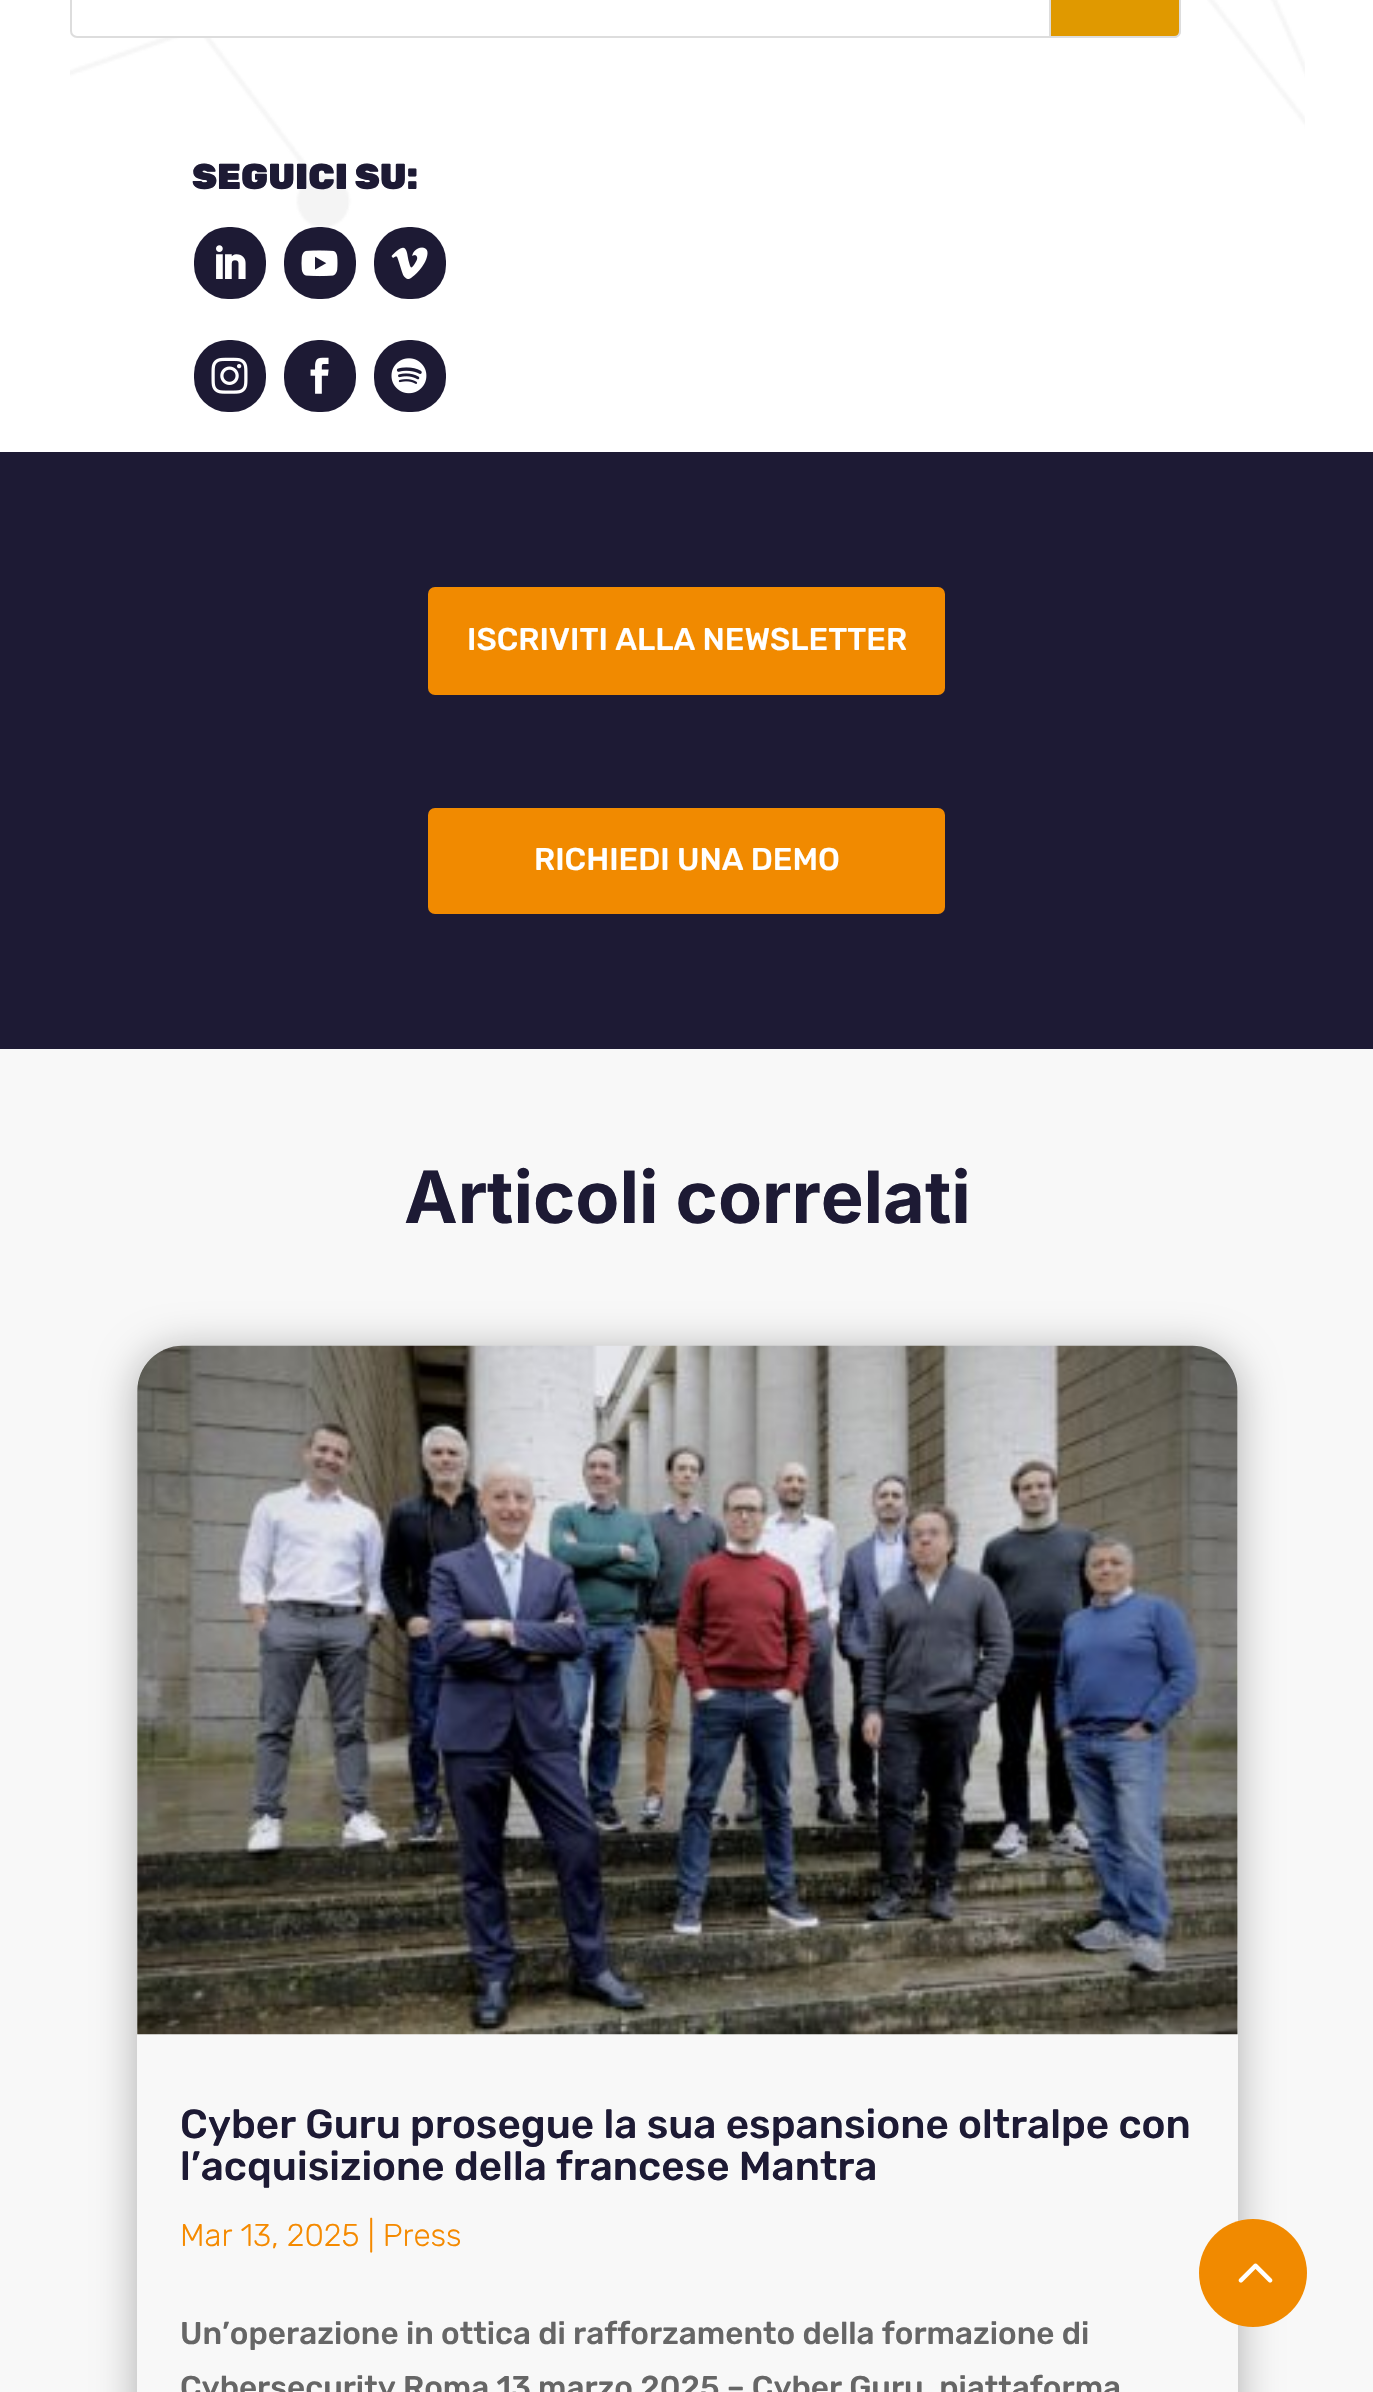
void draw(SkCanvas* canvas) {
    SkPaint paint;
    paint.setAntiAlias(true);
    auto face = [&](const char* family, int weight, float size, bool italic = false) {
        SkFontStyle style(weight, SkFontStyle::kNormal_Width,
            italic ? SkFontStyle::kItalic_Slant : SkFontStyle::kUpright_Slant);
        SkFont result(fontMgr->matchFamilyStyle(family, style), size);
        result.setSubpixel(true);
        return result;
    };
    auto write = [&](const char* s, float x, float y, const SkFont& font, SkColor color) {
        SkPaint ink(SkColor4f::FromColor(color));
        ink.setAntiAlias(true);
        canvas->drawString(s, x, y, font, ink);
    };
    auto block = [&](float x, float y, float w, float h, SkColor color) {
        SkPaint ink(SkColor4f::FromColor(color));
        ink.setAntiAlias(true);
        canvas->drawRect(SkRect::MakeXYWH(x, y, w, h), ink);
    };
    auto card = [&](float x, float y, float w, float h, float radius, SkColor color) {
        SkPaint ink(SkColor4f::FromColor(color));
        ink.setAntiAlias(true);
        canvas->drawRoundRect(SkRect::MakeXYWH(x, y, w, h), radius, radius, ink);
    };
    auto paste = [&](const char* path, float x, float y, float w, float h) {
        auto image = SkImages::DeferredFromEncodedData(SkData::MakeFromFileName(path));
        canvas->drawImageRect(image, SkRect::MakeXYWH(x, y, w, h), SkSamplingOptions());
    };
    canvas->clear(SK_ColorWHITE);
    paste("pic1.png", 70, 0, 1235, 228);
    paint.setColor(SK_ColorWHITE);
    canvas->drawRoundRect(SkRect::MakeXYWH(71, -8, 1109, 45), 6, 6, paint);
    paint.setStyle(SkPaint::kStroke_Style);
    paint.setStrokeWidth(2);
    paint.setColor(SkColorSetRGB(221, 221, 221));
    canvas->drawRoundRect(SkRect::MakeXYWH(71, -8, 1109, 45), 6, 6, paint);
    paint.setStyle(SkPaint::kFill_Style);
    paint.setColor(SkColorSetRGB(224, 153, 0));
    canvas->drawPath(SkPathBuilder().moveTo(1050, -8).lineTo(1174, -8).cubicTo(1177.5f, -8, 1180, -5.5f, 1180, -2).lineTo(1180, 31).cubicTo(1180, 34.5f, 1177.5f, 37, 1174, 37).lineTo(1050, 37).close().detach(), paint);
    paint.setStyle(SkPaint::kStroke_Style);
    paint.setColor(SkColorSetRGB(221, 221, 221));
    canvas->drawPath(SkPathBuilder().moveTo(1050, -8).lineTo(1174, -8).cubicTo(1177.5f, -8, 1180, -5.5f, 1180, -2).lineTo(1180, 31).cubicTo(1180, 34.5f, 1177.5f, 37, 1174, 37).lineTo(1050, 37).close().detach(), paint);
    auto kFont1 = face("Rubik", 900, 36);
    write("SEGUICI SU:", 192, 189, kFont1, SkColorSetRGB(29, 26, 52));
    card(194, 227, 72, 72, 34, SkColorSetRGB(29, 26, 52));
    paste("pic2.png", 216, 245, 30, 34);
    card(284, 227, 72, 72, 34, SkColorSetRGB(29, 26, 52));
    paste("pic3.png", 301, 250, 37, 27);
    card(374, 227, 72, 72, 34, SkColorSetRGB(29, 26, 52));
    paste("pic4.png", 391, 247, 37, 32);
    card(194, 340, 72, 72, 34, SkColorSetRGB(29, 26, 52));
    paste("pic5.png", 211, 357, 37, 37);
    card(284, 340, 72, 72, 34, SkColorSetRGB(29, 26, 52));
    paste("pic6.png", 310, 357, 19, 37);
    card(374, 340, 72, 72, 34, SkColorSetRGB(29, 26, 52));
    paste("pic7.png", 391, 358, 36, 36);
    block(0, 452, 1373, 597, SkColorSetRGB(29, 26, 52));
    card(428, 587, 517, 108, 7, SkColorSetRGB(241, 138, 0));
    auto kFont2 = face("Rubik", 500, 31.5f);
    write("ISCRIVITI ALLA NEWSLETTER", 467, 650, kFont2, SK_ColorWHITE);
    card(428, 808, 517, 106, 7, SkColorSetRGB(241, 138, 0));
    write("RICHIEDI UNA DEMO", 534, 870, kFont2, SK_ColorWHITE);
    block(0, 1049, 1373, 1343, SkColorSetRGB(248, 248, 248));
    auto kFont3 = face("Inter", 700, 72);
    write("Articoli correlati", 404, 1223, kFont3, SkColorSetRGB(29, 26, 52));
    canvas->save();
    canvas->clipPath(SkPathBuilder(SkPathFillType::kEvenOdd).moveTo(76, 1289).lineTo(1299, 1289).lineTo(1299, 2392).lineTo(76, 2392).close().moveTo(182, 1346).lineTo(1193, 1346).cubicTo(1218, 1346, 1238, 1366, 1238, 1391).lineTo(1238, 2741).cubicTo(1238, 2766, 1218, 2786, 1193, 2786).lineTo(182, 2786).cubicTo(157, 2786, 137, 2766, 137, 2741).lineTo(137, 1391).cubicTo(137, 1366, 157, 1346, 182, 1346).close().detach(), true);
    paint.setStyle(SkPaint::kFill_Style);
    paint.setColor(SkColorSetARGB(77, 0, 0, 0));
    paint.setMaskFilter(SkMaskFilter::MakeBlur(kNormal_SkBlurStyle, 20));
    canvas->drawRoundRect(SkRect::MakeXYWH(137, 1350, 1101, 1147), 45, 45, paint);
    paint.setMaskFilter(nullptr);
    canvas->restore();
    paste("pic8.png", 137, 1345, 1101, 690);
    auto kFont4 = face("Rubik", 500, 40.5f);
    write("Cyber Guru prosegue la sua espansione oltralpe con", 180, 2138, kFont4, SkColorSetRGB(29, 26, 52));
    write("l’acquisizione della francese Mantra", 180, 2180, kFont4, SkColorSetRGB(29, 26, 52));
    auto kFont5 = face("Rubik", 300, 31.5f);
    write("Mar 13, 2025 | Press", 180, 2246, kFont5, SkColorSetRGB(245, 138, 0));
    write("Un’operazione in ottica di rafforzamento della formazione di", 180, 2344, kFont2, SkColorSetRGB(102, 102, 102));
    write("Cybersecurity Roma 13 marzo 2025 – Cyber Guru, piattaforma", 180, 2398, kFont2, SkColorSetRGB(102, 102, 102));
    paint.setColor(SkColorSetRGB(241, 138, 0));
    canvas->drawCircle(1253, 2273, 54, paint);
    paste("pic9.png", 1238, 2263, 35, 20);
}
